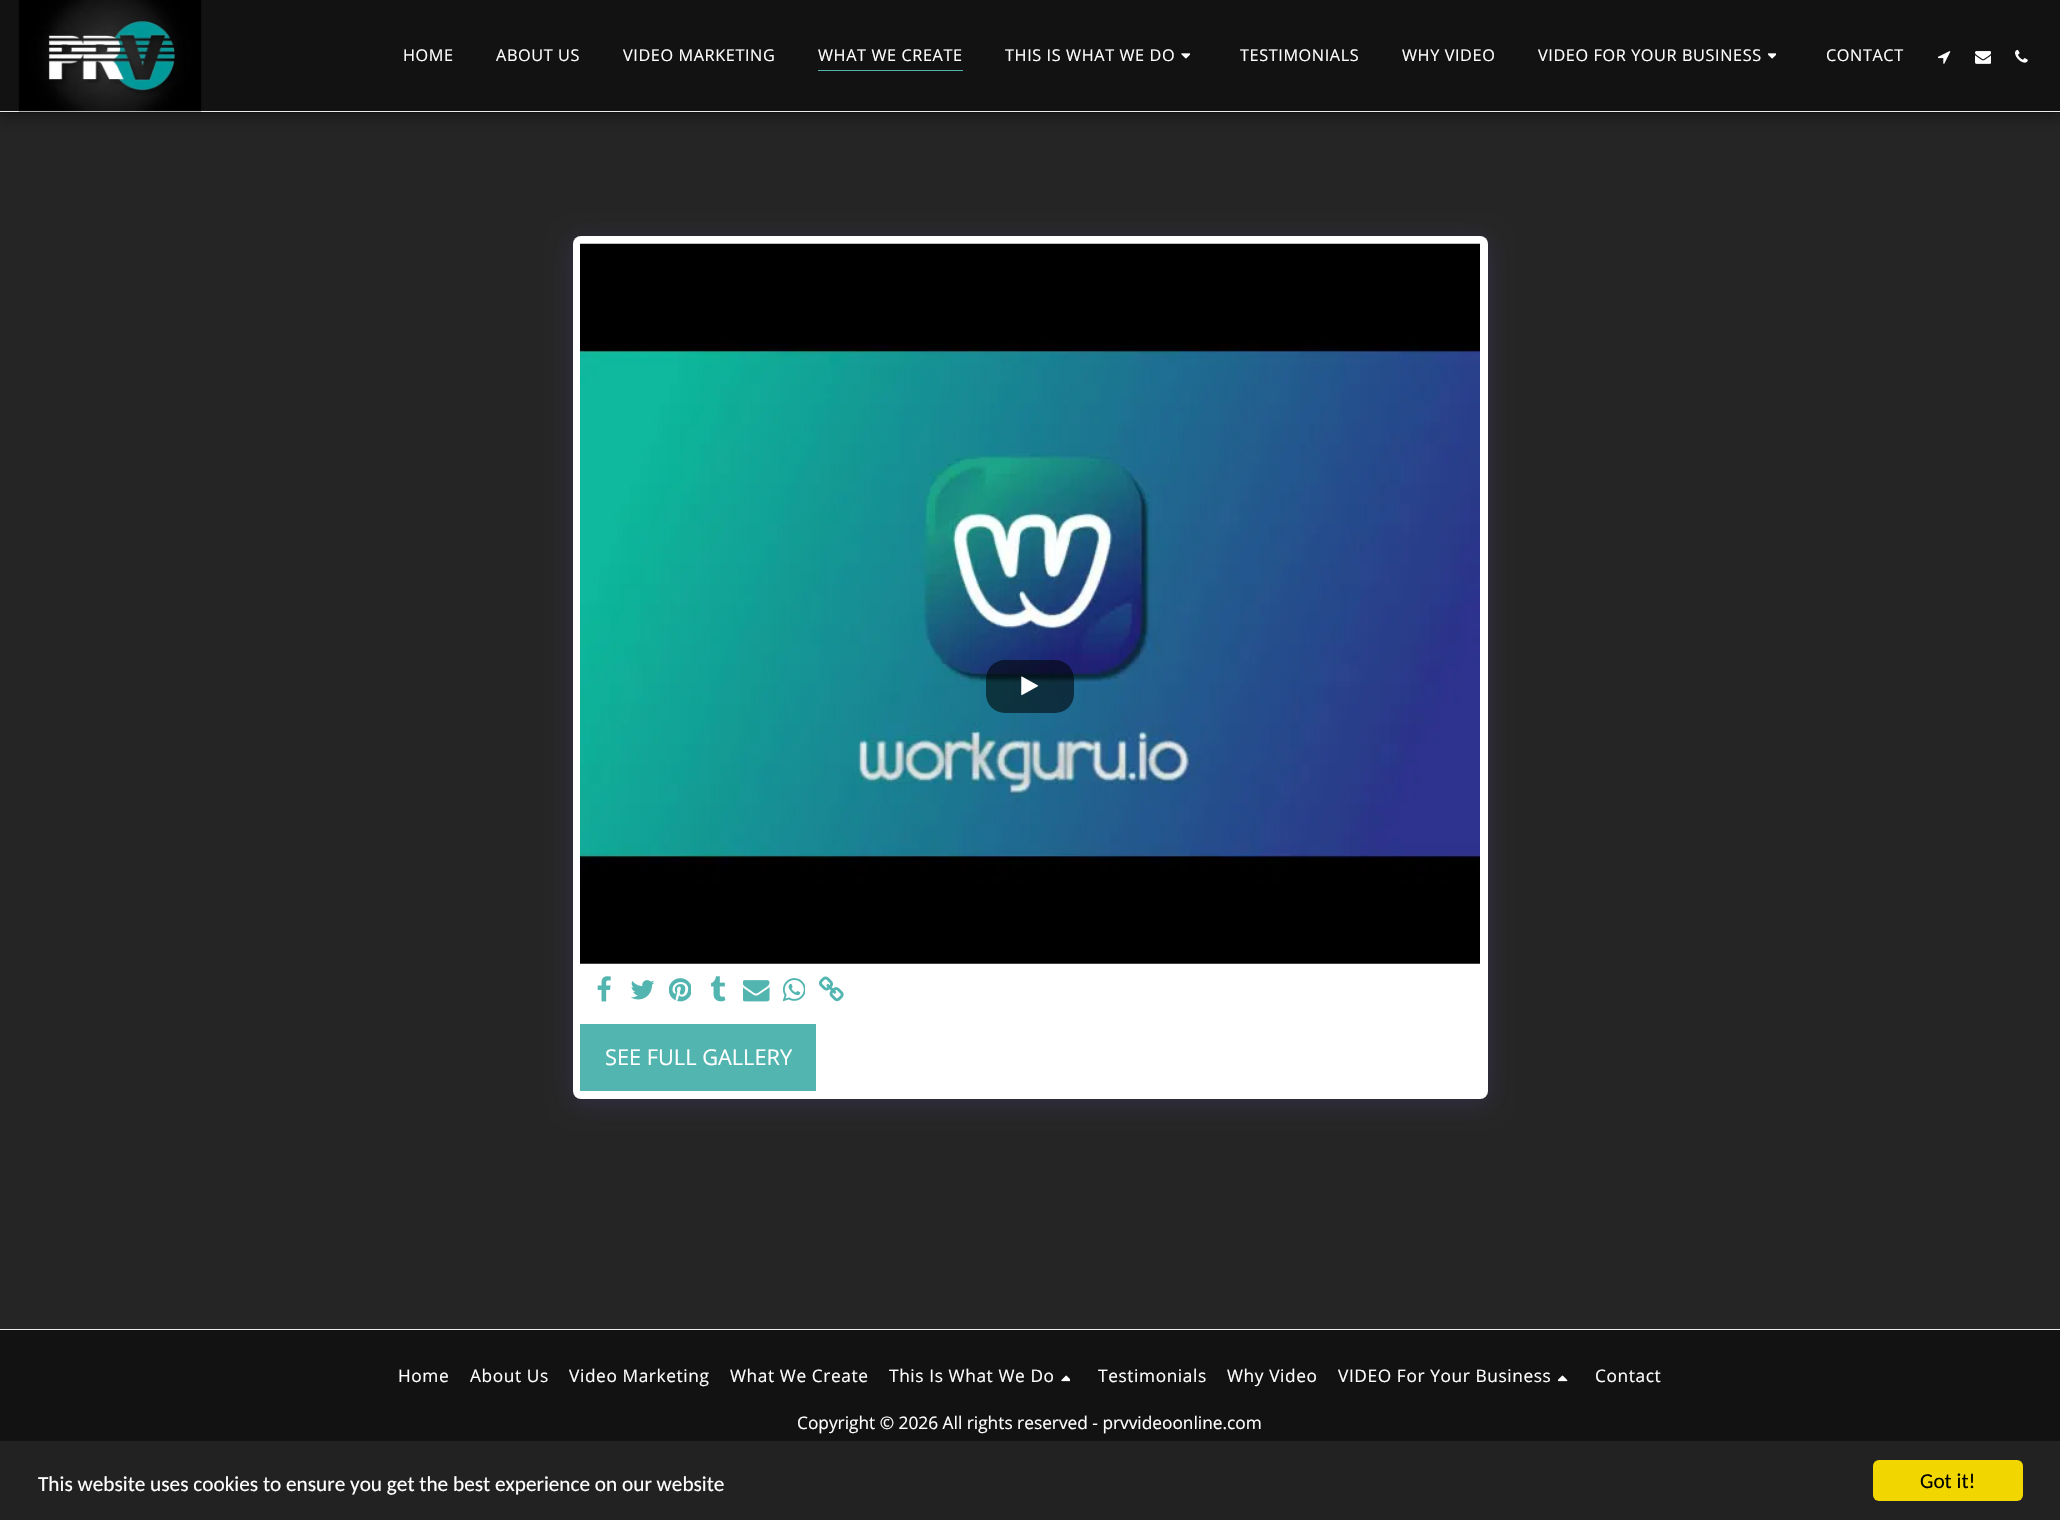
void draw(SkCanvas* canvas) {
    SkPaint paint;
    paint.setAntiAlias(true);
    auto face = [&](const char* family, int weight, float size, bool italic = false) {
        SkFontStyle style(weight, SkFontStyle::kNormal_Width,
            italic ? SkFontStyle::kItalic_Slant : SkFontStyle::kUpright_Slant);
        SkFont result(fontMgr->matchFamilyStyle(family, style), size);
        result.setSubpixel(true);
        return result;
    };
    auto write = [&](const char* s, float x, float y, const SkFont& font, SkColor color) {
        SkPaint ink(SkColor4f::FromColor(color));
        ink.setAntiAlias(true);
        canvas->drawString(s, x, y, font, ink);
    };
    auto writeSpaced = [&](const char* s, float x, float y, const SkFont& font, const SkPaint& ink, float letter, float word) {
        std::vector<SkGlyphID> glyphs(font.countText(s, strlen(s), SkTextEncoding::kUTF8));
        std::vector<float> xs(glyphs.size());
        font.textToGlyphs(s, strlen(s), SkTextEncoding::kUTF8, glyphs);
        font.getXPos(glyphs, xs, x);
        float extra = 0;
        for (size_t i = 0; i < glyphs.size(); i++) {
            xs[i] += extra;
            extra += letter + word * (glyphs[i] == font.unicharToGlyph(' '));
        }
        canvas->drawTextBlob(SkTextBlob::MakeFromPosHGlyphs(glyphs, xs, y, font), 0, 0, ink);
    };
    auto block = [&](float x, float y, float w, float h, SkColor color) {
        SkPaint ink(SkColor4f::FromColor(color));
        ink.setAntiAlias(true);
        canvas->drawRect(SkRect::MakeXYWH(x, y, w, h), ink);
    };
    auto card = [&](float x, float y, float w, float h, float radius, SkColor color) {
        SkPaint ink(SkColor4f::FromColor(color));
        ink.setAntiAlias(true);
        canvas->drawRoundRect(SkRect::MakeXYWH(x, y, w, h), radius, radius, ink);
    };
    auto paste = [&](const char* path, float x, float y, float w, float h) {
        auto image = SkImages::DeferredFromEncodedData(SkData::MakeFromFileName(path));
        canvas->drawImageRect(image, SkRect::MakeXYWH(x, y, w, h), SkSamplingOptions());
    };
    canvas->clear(SkColorSetRGB(235, 235, 235));
    block(0, 113, 2060, 1216, SkColorSetRGB(37, 37, 37));
    paint.setColor(SkColorSetARGB(89, 0, 0, 0));
    paint.setMaskFilter(SkMaskFilter::MakeBlur(kNormal_SkBlurStyle, 7.5f));
    canvas->drawRect(SkRect::MakeXYWH(-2, 0, 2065, 118), paint);
    paint.setMaskFilter(nullptr);
    block(0, 0, 2060, 113, SkColorSetRGB(18, 18, 18));
    block(0, 111, 2060, 1, SkColorSetRGB(235, 235, 235));
    paste("pic1.png", 18, 0, 184, 112);
    auto kFont1 = face("Open Sans", 400, 16.25f);
    paint.setColor(SK_ColorWHITE);
    writeSpaced("HOME", 403, 61, kFont1, paint, 0.6f, 0);
    writeSpaced("ABOUT US", 496, 61, kFont1, paint, 0.6f, 0);
    writeSpaced("VIDEO MARKETING", 623, 61, kFont1, paint, 0.6f, 0);
    writeSpaced("WHAT WE CREATE", 818, 61, kFont1, paint, 0.6f, 0);
    block(818, 70, 145, 1, SkColorSetRGB(83, 181, 176));
    writeSpaced("THIS IS WHAT WE DO", 1005, 61, kFont1, paint, 0.6f, 0);
    paste("pic2.png", 1181, 53, 9, 6);
    writeSpaced("TESTIMONIALS", 1240, 61, kFont1, paint, 0.6f, 0);
    writeSpaced("WHY VIDEO", 1402, 61, kFont1, paint, 0.6f, 0);
    writeSpaced("VIDEO FOR YOUR BUSINESS", 1538, 61, kFont1, paint, 0.6f, 0);
    paste("pic3.png", 1768, 53, 8, 6);
    writeSpaced("CONTACT", 1826, 61, kFont1, paint, 0.6f, 0);
    paste("pic4.png", 1938, 51, 13, 13);
    paste("pic5.png", 1975, 51, 16, 13);
    paste("pic6.png", 2015, 49, 13, 14);
    paint.setColor(SkColorSetARGB(102, 77, 63, 122));
    paint.setMaskFilter(SkMaskFilter::MakeBlur(kNormal_SkBlurStyle, 12.5f));
    canvas->drawRoundRect(SkRect::MakeXYWH(573, 240, 915, 863), 8, 8, paint);
    paint.setMaskFilter(nullptr);
    card(573, 236, 915, 863, 8, SK_ColorWHITE);
    paste("pic7.png", 580, 243, 900, 721);
    card(986, 660, 88, 53, 19, SkColorSetARGB(145, 0, 0, 0));
    paste("pic8.png", 1021, 676, 18, 20);
    paste("pic9.png", 597, 976, 14, 26);
    paste("pic10.png", 630, 980, 25, 20);
    paste("pic11.png", 669, 978, 22, 24);
    paste("pic12.png", 711, 976, 15, 26);
    paste("pic13.png", 743, 980, 27, 22);
    paste("pic14.png", 783, 978, 22, 24);
    paste("pic15.png", 819, 976, 25, 26);
    block(580, 1024, 236, 67, SkColorSetRGB(83, 181, 176));
    auto kFont2 = face("Open Sans", 400, 21.75f);
    write("SEE FULL GALLERY", 605, 1065, kFont2, SK_ColorWHITE);
    block(0, 1330, 2060, 111, SkColorSetRGB(18, 18, 18));
    auto kFont3 = face("Open Sans", 400, 17.3f);
    paint.setColor(SK_ColorWHITE);
    writeSpaced("Home", 398, 1382, kFont3, paint, 0.6f, 0);
    writeSpaced("About Us", 470, 1382, kFont3, paint, 0.6f, 0);
    writeSpaced("Video Marketing", 569, 1382, kFont3, paint, 0.6f, 0);
    writeSpaced("What We Create", 730, 1382, kFont3, paint, 0.6f, 0);
    writeSpaced("This Is What We Do", 889, 1382, kFont3, paint, 0.6f, 0);
    paste("pic16.png", 1061, 1375, 9, 7);
    writeSpaced("Testimonials", 1098, 1382, kFont3, paint, 0.6f, 0);
    writeSpaced("Why Video", 1227, 1382, kFont3, paint, 0.6f, 0);
    writeSpaced("VIDEO For Your Business", 1338, 1382, kFont3, paint, 0.6f, 0);
    paste("pic17.png", 1558, 1375, 10, 7);
    writeSpaced("Contact", 1595, 1382, kFont3, paint, 0.6f, 0);
    write("Copyright © 2026 All rights reserved - prvvideoonline.com", 797, 1429, kFont3, SK_ColorWHITE);
    block(0, 1441, 2060, 79, SkColorSetRGB(34, 34, 34));
    auto kFont4 = face("Carlito", 400, 21.25f);
    write("This website uses cookies to ensure you get the best experience on our website", 38, 1491, kFont4, SK_ColorWHITE);
    card(1873, 1460, 150, 41, 6, SkColorSetRGB(241, 214, 0));
    write("Got it!", 1920, 1488, kFont4, SK_ColorBLACK);
}
